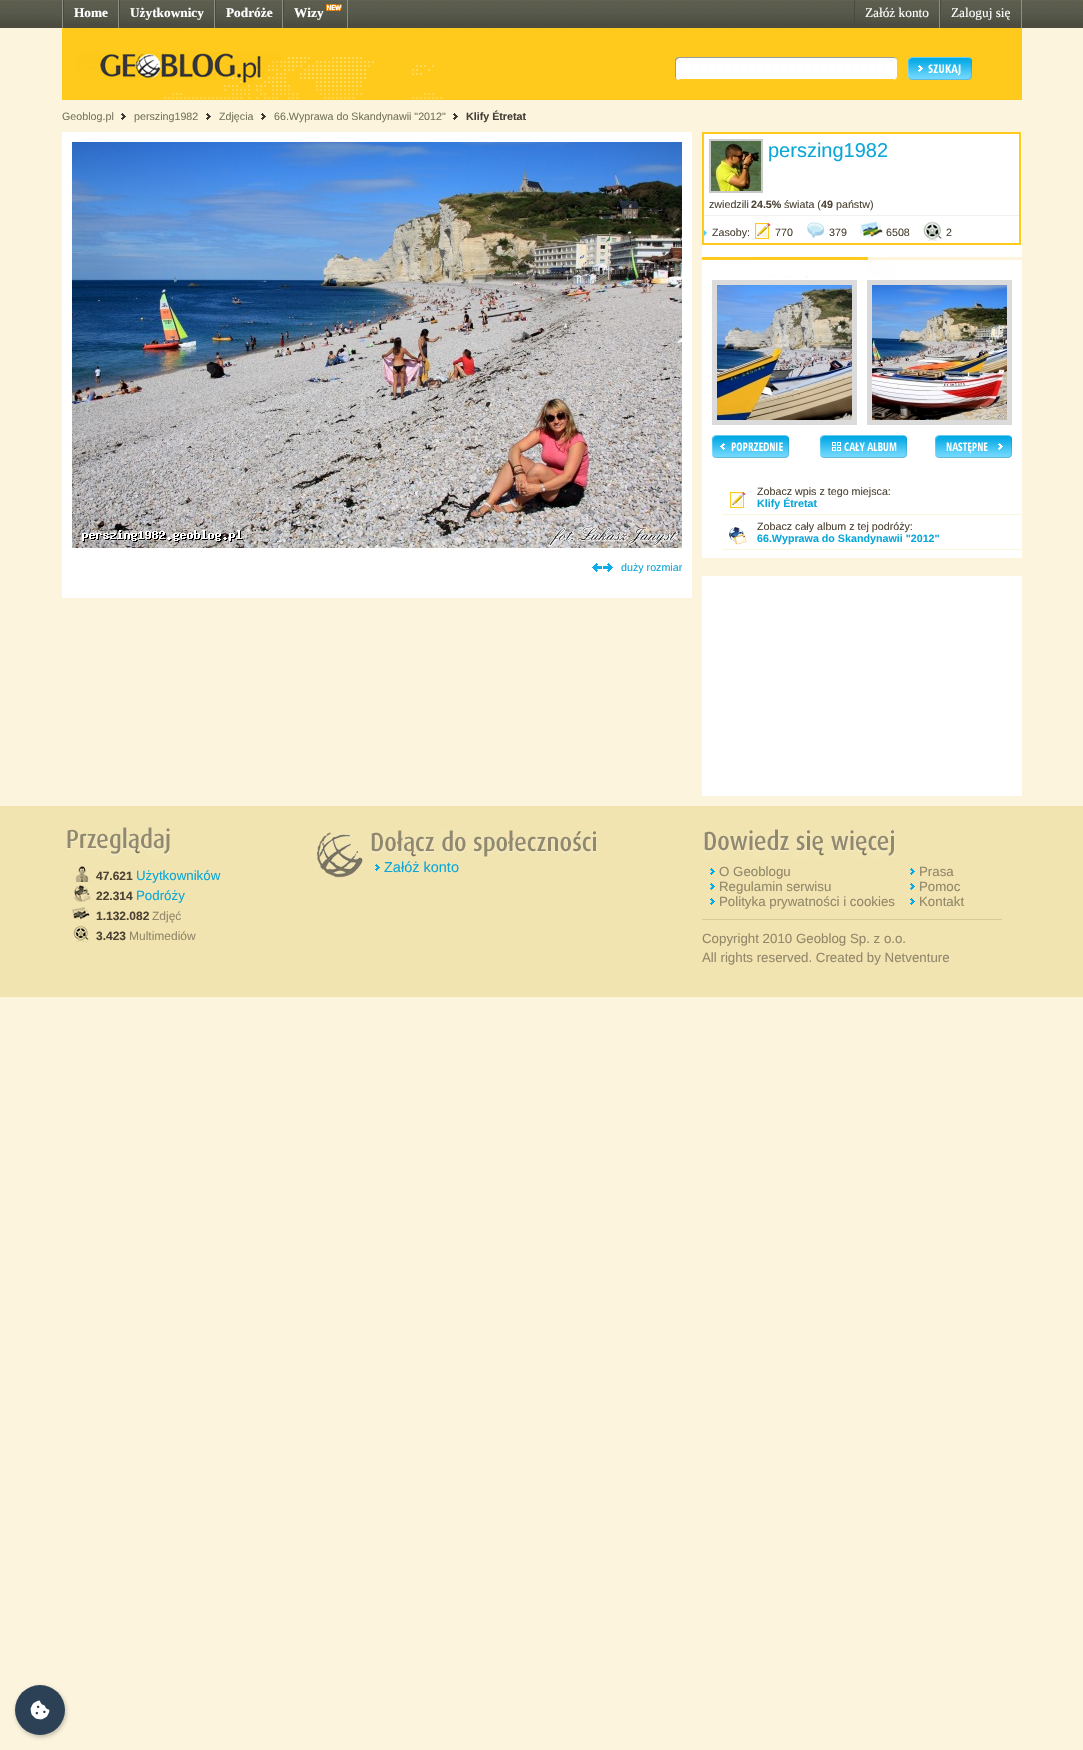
void draw(SkCanvas* canvas) {
    SkPaint paint;
    paint.setAntiAlias(true);
    auto face = [&](const char* family, int weight, float size, bool italic = false) {
        SkFontStyle style(weight, SkFontStyle::kNormal_Width,
            italic ? SkFontStyle::kItalic_Slant : SkFontStyle::kUpright_Slant);
        SkFont result(fontMgr->matchFamilyStyle(family, style), size);
        result.setSubpixel(true);
        return result;
    };
    auto write = [&](const char* s, float x, float y, const SkFont& font, SkColor color) {
        SkPaint ink(SkColor4f::FromColor(color));
        ink.setAntiAlias(true);
        canvas->drawString(s, x, y, font, ink);
    };
    auto block = [&](float x, float y, float w, float h, SkColor color) {
        SkPaint ink(SkColor4f::FromColor(color));
        ink.setAntiAlias(true);
        canvas->drawRect(SkRect::MakeXYWH(x, y, w, h), ink);
    };
    auto paste = [&](const char* path, float x, float y, float w, float h) {
        auto image = SkImages::DeferredFromEncodedData(SkData::MakeFromFileName(path));
        canvas->drawImageRect(image, SkRect::MakeXYWH(x, y, w, h), SkSamplingOptions());
    };
    canvas->clear(SkColorSetRGB(252, 244, 221));
    paste("pic1.png", 0, 0, 1083, 28);
    block(62, 0, 1, 28, SkColorSetRGB(140, 141, 131));
    block(118, 0, 1, 28, SkColorSetRGB(140, 141, 131));
    block(63, 0, 1, 28, SkColorSetRGB(73, 74, 65));
    auto kFont1 = face("Liberation Serif", 700, 13.3f);
    write("Home", 74, 17, kFont1, SK_ColorWHITE);
    block(214, 0, 1, 28, SkColorSetRGB(140, 141, 131));
    block(119, 0, 1, 28, SkColorSetRGB(73, 74, 65));
    write("Użytkownicy", 130, 17, kFont1, SK_ColorWHITE);
    block(282, 0, 1, 28, SkColorSetRGB(140, 141, 131));
    block(215, 0, 1, 28, SkColorSetRGB(73, 74, 65));
    write("Podróże", 226, 17, kFont1, SK_ColorWHITE);
    block(347, 0, 1, 28, SkColorSetRGB(140, 141, 131));
    block(283, 0, 1, 28, SkColorSetRGB(73, 74, 65));
    write("Wizy", 294, 17, kFont1, SK_ColorWHITE);
    paste("pic2.png", 326, 4, 16, 7);
    block(939, 0, 1, 28, SkColorSetRGB(140, 141, 131));
    block(854, 0, 1, 28, SkColorSetRGB(73, 74, 65));
    auto kFont2 = face("Liberation Serif", 400, 13.3f);
    write("Załóż konto", 865, 17, kFont2, SK_ColorWHITE);
    block(1021, 0, 1, 28, SkColorSetRGB(140, 141, 131));
    block(940, 0, 1, 28, SkColorSetRGB(73, 74, 65));
    write("Zaloguj się", 951, 17, kFont2, SK_ColorWHITE);
    block(62, 28, 960, 72, SkColorSetRGB(255, 202, 28));
    paste("pic3.png", 62, 52, 380, 48);
    paste("pic4.png", 675, 56, 4, 25);
    block(679, 78, 215, 1, SK_ColorWHITE);
    paste("pic5.png", 679, 56, 215, 22);
    paste("pic6.png", 894, 56, 4, 25);
    paste("pic7.png", 908, 57, 64, 23);
    auto kFont3 = face("Liberation Sans", 400, 10.7f);
    write("Geoblog.pl", 62, 120, kFont3, SkColorSetRGB(118, 118, 92));
    paste("pic8.png", 121, 113, 5, 7);
    write("perszing1982", 134, 120, kFont3, SkColorSetRGB(118, 118, 92));
    paste("pic8.png", 206, 113, 5, 7);
    write("Zdjęcia", 219, 120, kFont3, SkColorSetRGB(118, 118, 92));
    paste("pic8.png", 261, 113, 5, 7);
    write("66.Wyprawa do Skandynawii \"2012\"", 274, 120, kFont3, SkColorSetRGB(118, 118, 92));
    paste("pic8.png", 453, 113, 5, 7);
    auto kFont4 = face("Liberation Sans", 700, 10.7f);
    write("Klify Étretat", 466, 120, kFont4, SkColorSetRGB(68, 63, 57));
    block(702, 132, 320, 426, SK_ColorWHITE);
    paint.setStyle(SkPaint::kStroke_Style);
    paint.setStrokeWidth(2);
    paint.setColor(SkColorSetRGB(255, 202, 28));
    canvas->drawRect(SkRect::MakeXYWH(703, 133, 317, 111), paint);
    block(704, 215, 315, 1, SkColorSetRGB(240, 240, 240));
    paint.setColor(SkColorSetRGB(202, 202, 202));
    canvas->drawRect(SkRect::MakeXYWH(710, 140, 52, 52), paint);
    paste("pic9.png", 711, 141, 50, 50);
    auto kFont5 = face("Liberation Sans", 400, 20);
    write("perszing1982", 768, 157, kFont5, SkColorSetRGB(11, 167, 216));
    write("zwiedzili", 709, 208, kFont3, SkColorSetRGB(75, 66, 51));
    write("24.5%", 751, 208, kFont4, SkColorSetRGB(75, 66, 51));
    write("świata (", 784, 208, kFont3, SkColorSetRGB(75, 66, 51));
    write("49", 821, 208, kFont4, SkColorSetRGB(75, 66, 51));
    write("państw)", 836, 208, kFont3, SkColorSetRGB(75, 66, 51));
    paste("pic10.png", 704, 230, 3, 6);
    write("Zasoby:", 712, 236, kFont3, SkColorSetRGB(75, 66, 51));
    paste("pic11.png", 755, 223, 16, 16);
    write("770", 775, 236, kFont3, SkColorSetRGB(75, 66, 51));
    paste("pic12.png", 807, 222, 17, 16);
    write("379", 829, 236, kFont3, SkColorSetRGB(75, 66, 51));
    paste("pic13.png", 860, 221, 23, 17);
    write("6508", 886, 236, kFont3, SkColorSetRGB(75, 66, 51));
    paste("pic14.png", 923, 221, 19, 20);
    write("2", 946, 236, kFont3, SkColorSetRGB(75, 66, 51));
    paste("pic15.png", 702, 257, 320, 21);
    paint.setStrokeWidth(5);
    paint.setColor(SkColorSetRGB(219, 219, 219));
    canvas->drawRect(SkRect::MakeXYWH(714.5f, 282.5f, 140, 140), paint);
    paste("pic16.png", 717, 285, 135, 135);
    canvas->drawRect(SkRect::MakeXYWH(869.5f, 282.5f, 140, 140), paint);
    paste("pic17.png", 872, 285, 135, 135);
    paste("pic18.png", 712, 435, 77, 23);
    paste("pic19.png", 820, 435, 87, 23);
    paste("pic20.png", 935, 435, 77, 23);
    block(722, 514, 300, 1, SkColorSetRGB(250, 245, 223));
    paste("pic11.png", 730, 492, 16, 16);
    write("Zobacz wpis z tego miejsca:", 757, 495, kFont3, SkColorSetRGB(75, 66, 51));
    write("Klify Étretat", 757, 507, kFont4, SkColorSetRGB(11, 167, 216));
    block(722, 549, 300, 1, SkColorSetRGB(250, 245, 223));
    paste("pic21.png", 729, 527, 18, 18);
    write("Zobacz cały album z tej podróży:", 757, 530, kFont3, SkColorSetRGB(75, 66, 51));
    write("66.Wyprawa do Skandynawii \"2012\"", 757, 542, kFont4, SkColorSetRGB(11, 167, 216));
    block(702, 576, 320, 220, SK_ColorWHITE);
    block(62, 132, 630, 466, SK_ColorWHITE);
    paste("pic22.png", 72, 142, 610, 406);
    paste("pic23.png", 592, 563, 21, 9);
    write("duży rozmiar", 621, 571, kFont3, SkColorSetRGB(11, 167, 216));
    block(0, 806, 1083, 191, SkColorSetRGB(242, 228, 177));
    paste("pic24.png", 314, 828, 52, 52);
    paste("pic25.png", 367, 828, 234, 31);
    paste("pic26.png", 372, 862, 9, 12);
    auto kFont6 = face("Liberation Sans", 400, 14.5f);
    write("Załóż konto", 384, 872, kFont6, SkColorSetRGB(11, 167, 216));
    paste("pic27.png", 66, 826, 104, 32);
    paste("pic28.png", 73, 866, 16, 16);
    auto kFont7 = face("Liberation Sans", 700, 12);
    write("47.621", 96, 880, kFont7, SkColorSetRGB(75, 66, 51));
    auto kFont8 = face("Liberation Sans", 400, 13.3f);
    write("Użytkowników", 136, 880, kFont8, SkColorSetRGB(11, 167, 216));
    paste("pic29.png", 73, 885, 18, 17);
    write("22.314", 96, 900, kFont7, SkColorSetRGB(75, 66, 51));
    write("Podróży", 136, 900, kFont8, SkColorSetRGB(11, 167, 216));
    paste("pic30.png", 72, 906, 19, 16);
    write("1.132.082", 96, 920, kFont7, SkColorSetRGB(75, 66, 51));
    auto kFont9 = face("Liberation Sans", 400, 12);
    write("Zdjęć", 152, 920, kFont9, SkColorSetRGB(146, 136, 106));
    paste("pic31.png", 73, 925, 16, 17);
    write("3.423", 96, 940, kFont7, SkColorSetRGB(75, 66, 51));
    write("Multimediów", 129, 940, kFont9, SkColorSetRGB(146, 136, 106));
    paste("pic32.png", 704, 828, 192, 31);
    block(702, 919, 300, 1, SkColorSetRGB(215, 201, 154));
    paste("pic26.png", 707, 866, 9, 12);
    write("O Geoblogu", 719, 876, kFont8, SkColorSetRGB(146, 136, 106));
    paste("pic26.png", 707, 881, 9, 12);
    write("Regulamin serwisu", 719, 891, kFont8, SkColorSetRGB(146, 136, 106));
    paste("pic26.png", 707, 896, 9, 12);
    write("Polityka prywatności i cookies", 719, 906, kFont8, SkColorSetRGB(146, 136, 106));
    paste("pic26.png", 907, 866, 9, 12);
    write("Prasa", 919, 876, kFont8, SkColorSetRGB(146, 136, 106));
    paste("pic26.png", 907, 881, 9, 12);
    write("Pomoc", 919, 891, kFont8, SkColorSetRGB(146, 136, 106));
    paste("pic26.png", 907, 896, 9, 12);
    write("Kontakt", 919, 906, kFont8, SkColorSetRGB(146, 136, 106));
    write("Copyright 2010 Geoblog Sp. z o.o.", 702, 943, kFont8, SkColorSetRGB(146, 136, 106));
    write("All rights reserved. Created by Netventure", 702, 962, kFont8, SkColorSetRGB(146, 136, 106));
    paint.setStyle(SkPaint::kFill_Style);
    paint.setColor(SkColorSetARGB(64, 0, 0, 0));
    paint.setMaskFilter(SkMaskFilter::MakeBlur(kNormal_SkBlurStyle, 2));
    canvas->drawRoundRect(SkRect::MakeXYWH(16, 1687, 50, 50), 25, 25, paint);
    paint.setMaskFilter(nullptr);
    paint.setColor(SkColorSetRGB(45, 65, 86));
    canvas->drawCircle(40, 1710, 25, paint);
    paste("pic33.png", 30, 1700, 20, 20);
}
